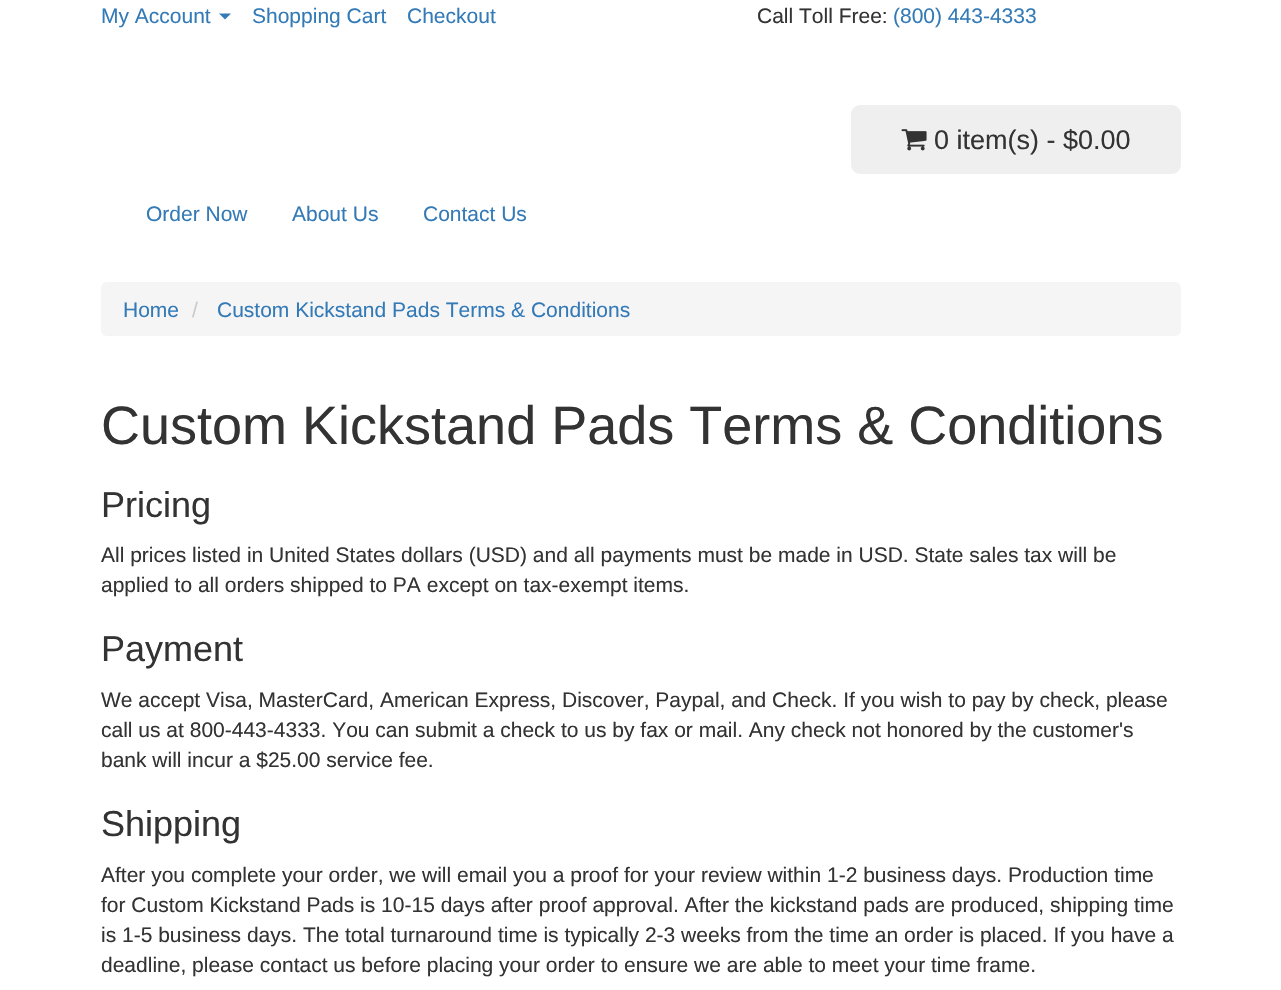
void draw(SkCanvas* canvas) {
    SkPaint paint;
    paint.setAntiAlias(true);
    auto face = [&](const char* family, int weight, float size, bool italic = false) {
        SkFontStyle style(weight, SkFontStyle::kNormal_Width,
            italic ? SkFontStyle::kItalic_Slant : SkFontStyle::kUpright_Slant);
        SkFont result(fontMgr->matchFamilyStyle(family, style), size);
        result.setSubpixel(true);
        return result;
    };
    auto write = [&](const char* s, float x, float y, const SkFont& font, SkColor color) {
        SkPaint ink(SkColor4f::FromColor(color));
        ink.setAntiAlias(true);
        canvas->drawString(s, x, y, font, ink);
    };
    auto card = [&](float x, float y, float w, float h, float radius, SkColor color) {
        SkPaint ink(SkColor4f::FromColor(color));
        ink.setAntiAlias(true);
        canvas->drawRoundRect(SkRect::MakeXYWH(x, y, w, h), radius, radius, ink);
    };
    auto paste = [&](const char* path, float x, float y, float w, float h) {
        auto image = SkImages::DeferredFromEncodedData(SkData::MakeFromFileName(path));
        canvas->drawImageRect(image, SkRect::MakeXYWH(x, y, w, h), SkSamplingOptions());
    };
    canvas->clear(SK_ColorWHITE);
    auto kFont1 = face("Liberation Sans", 400, 21);
    write("My Account", 101, 23, kFont1, SkColorSetRGB(51, 122, 183));
    paint.setColor(SkColorSetRGB(51, 122, 183));
    canvas->drawPath(SkPathBuilder().moveTo(219, 13.5f).lineTo(231, 13.5f).lineTo(225, 19.5f).close().detach(), paint);
    write("Shopping Cart", 252, 23, kFont1, SkColorSetRGB(51, 122, 183));
    write("Checkout", 407, 23, kFont1, SkColorSetRGB(51, 122, 183));
    write("Call Toll Free:", 757, 23, kFont1, SkColorSetRGB(51, 51, 51));
    write("(800) 443-4333", 893, 23, kFont1, SkColorSetRGB(51, 122, 183));
    card(851, 105, 330, 69, 9, SkColorSetRGB(239, 239, 239));
    paste("pic1.png", 901, 129, 26, 22);
    auto kFont2 = face("Liberation Sans", 400, 27);
    write("0 item(s) - $0.00", 934, 149, kFont2, SkColorSetRGB(51, 51, 51));
    write("Order Now", 146, 221, kFont1, SkColorSetRGB(51, 122, 183));
    write("About Us", 292, 221, kFont1, SkColorSetRGB(51, 122, 183));
    write("Contact Us", 423, 221, kFont1, SkColorSetRGB(51, 122, 183));
    card(101, 282, 1080, 54, 6, SkColorSetRGB(245, 245, 245));
    write("Home", 123, 317, kFont1, SkColorSetRGB(51, 122, 183));
    write("/", 192, 317, kFont1, SkColorSetRGB(204, 204, 204));
    write("Custom Kickstand Pads Terms & Conditions", 217, 317, kFont1, SkColorSetRGB(51, 122, 183));
    auto kFont3 = face("Liberation Sans", 400, 54);
    write("Custom Kickstand Pads Terms & Conditions", 101, 444, kFont3, SkColorSetRGB(51, 51, 51));
    auto kFont4 = face("Liberation Sans", 400, 36);
    write("Pricing", 101, 517, kFont4, SkColorSetRGB(51, 51, 51));
    write("All prices listed in United States dollars (USD) and all payments must be made in USD. State sales tax will be", 101, 562, kFont1, SkColorSetRGB(51, 51, 51));
    write("applied to all orders shipped to PA except on tax-exempt items.", 101, 592, kFont1, SkColorSetRGB(51, 51, 51));
    write("Payment", 101, 661, kFont4, SkColorSetRGB(51, 51, 51));
    write("We accept Visa, MasterCard, American Express, Discover, Paypal, and Check. If you wish to pay by check, please", 101, 707, kFont1, SkColorSetRGB(51, 51, 51));
    write("call us at 800-443-4333. You can submit a check to us by fax or mail. Any check not honored by the customer's", 101, 737, kFont1, SkColorSetRGB(51, 51, 51));
    write("bank will incur a $25.00 service fee.", 101, 767, kFont1, SkColorSetRGB(51, 51, 51));
    write("Shipping", 101, 836, kFont4, SkColorSetRGB(51, 51, 51));
    write("After you complete your order, we will email you a proof for your review within 1-2 business days. Production time", 101, 882, kFont1, SkColorSetRGB(51, 51, 51));
    write("for Custom Kickstand Pads is 10-15 days after proof approval. After the kickstand pads are produced, shipping time", 101, 912, kFont1, SkColorSetRGB(51, 51, 51));
    write("is 1-5 business days. The total turnaround time is typically 2-3 weeks from the time an order is placed. If you have a", 101, 942, kFont1, SkColorSetRGB(51, 51, 51));
    write("deadline, please contact us before placing your order to ensure we are able to meet your time frame.", 101, 972, kFont1, SkColorSetRGB(51, 51, 51));
}
